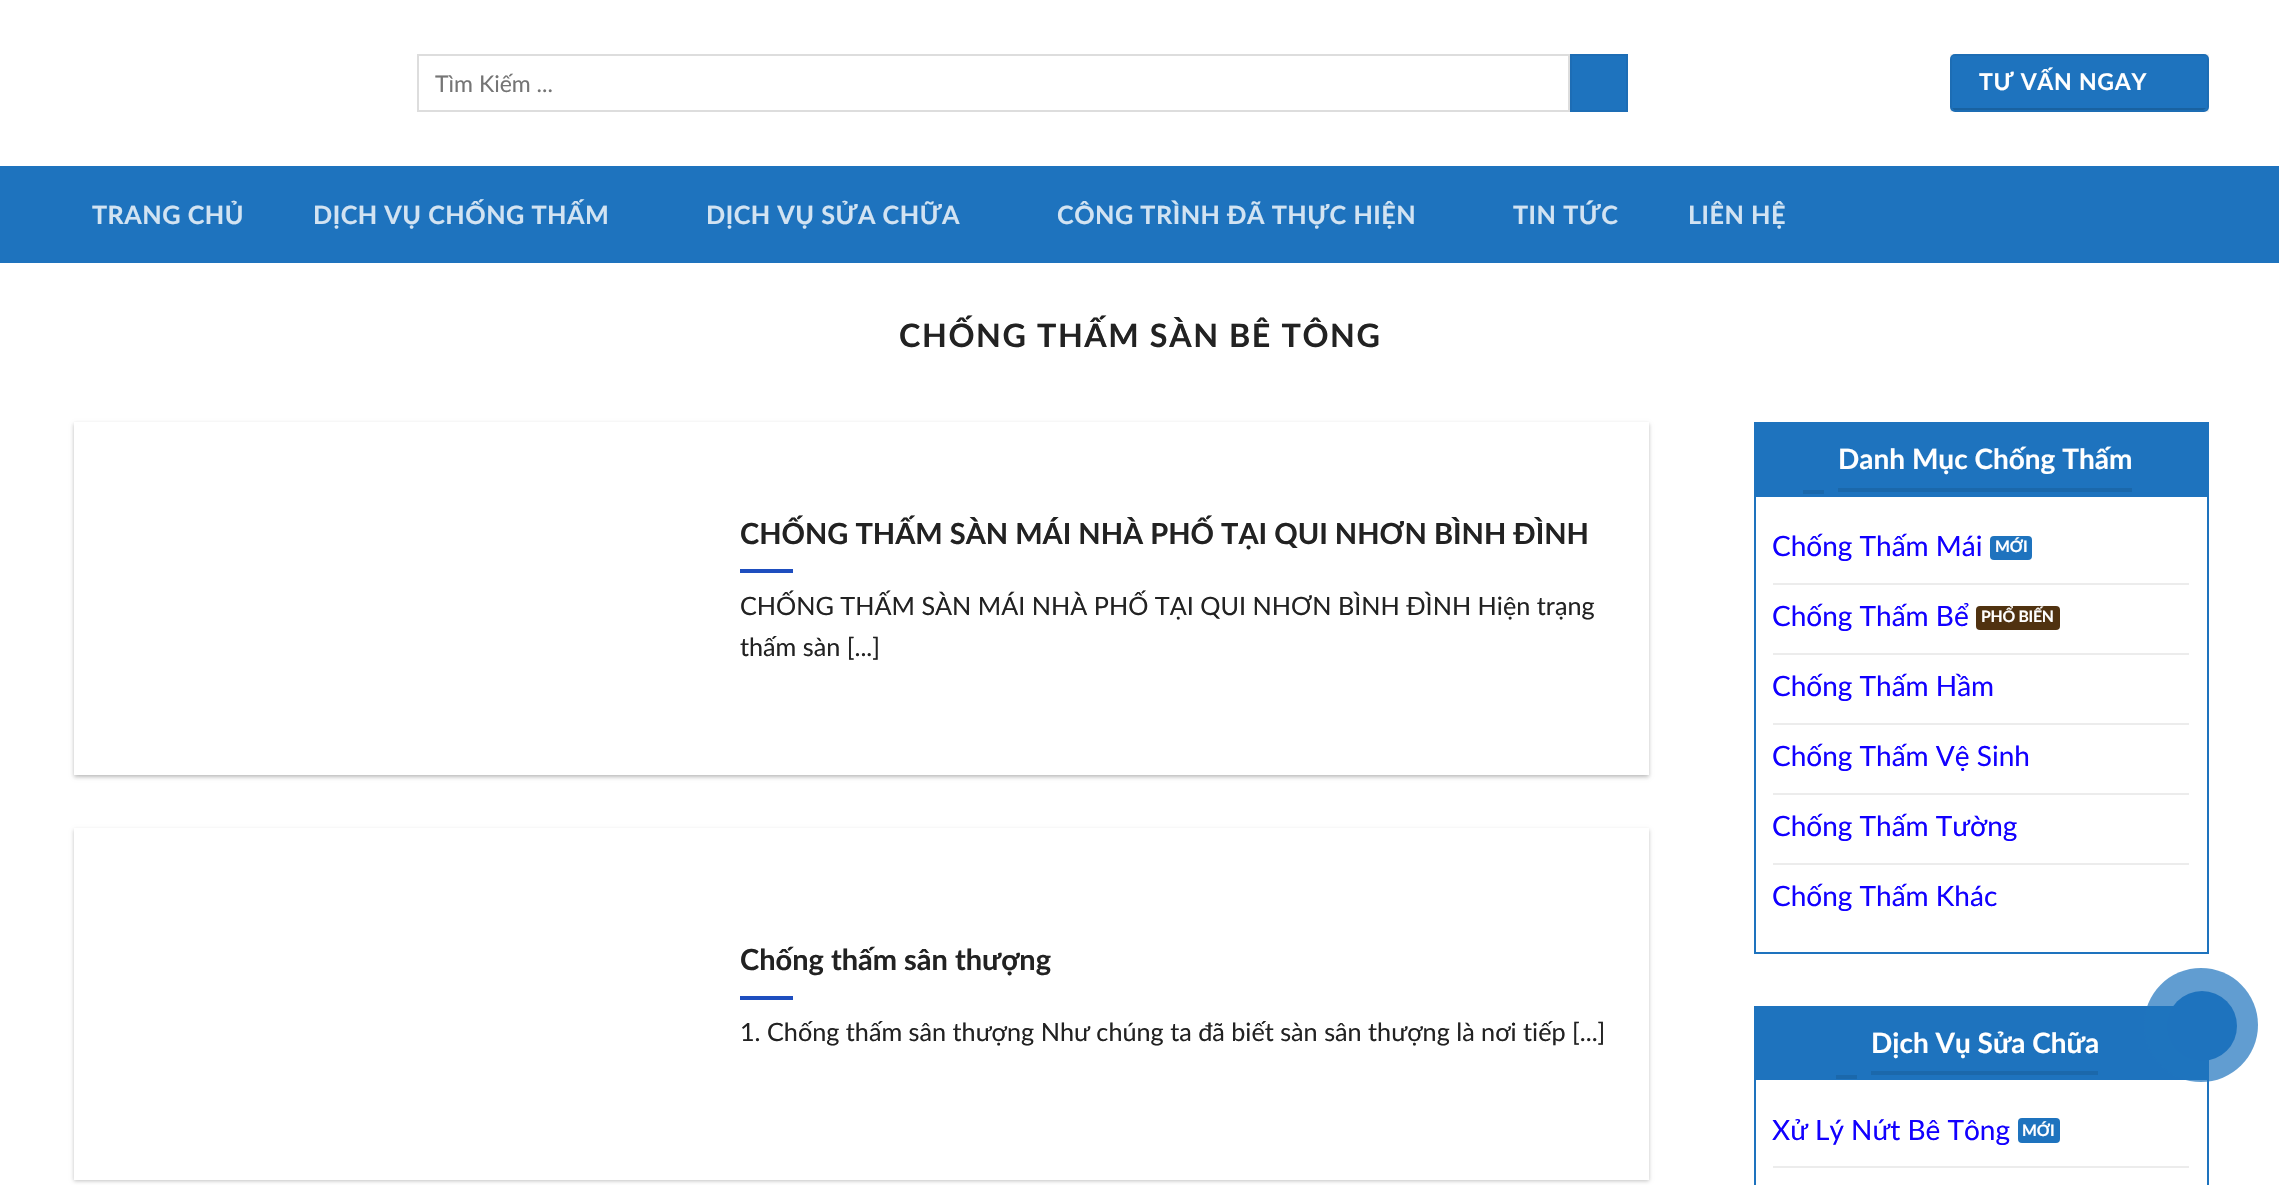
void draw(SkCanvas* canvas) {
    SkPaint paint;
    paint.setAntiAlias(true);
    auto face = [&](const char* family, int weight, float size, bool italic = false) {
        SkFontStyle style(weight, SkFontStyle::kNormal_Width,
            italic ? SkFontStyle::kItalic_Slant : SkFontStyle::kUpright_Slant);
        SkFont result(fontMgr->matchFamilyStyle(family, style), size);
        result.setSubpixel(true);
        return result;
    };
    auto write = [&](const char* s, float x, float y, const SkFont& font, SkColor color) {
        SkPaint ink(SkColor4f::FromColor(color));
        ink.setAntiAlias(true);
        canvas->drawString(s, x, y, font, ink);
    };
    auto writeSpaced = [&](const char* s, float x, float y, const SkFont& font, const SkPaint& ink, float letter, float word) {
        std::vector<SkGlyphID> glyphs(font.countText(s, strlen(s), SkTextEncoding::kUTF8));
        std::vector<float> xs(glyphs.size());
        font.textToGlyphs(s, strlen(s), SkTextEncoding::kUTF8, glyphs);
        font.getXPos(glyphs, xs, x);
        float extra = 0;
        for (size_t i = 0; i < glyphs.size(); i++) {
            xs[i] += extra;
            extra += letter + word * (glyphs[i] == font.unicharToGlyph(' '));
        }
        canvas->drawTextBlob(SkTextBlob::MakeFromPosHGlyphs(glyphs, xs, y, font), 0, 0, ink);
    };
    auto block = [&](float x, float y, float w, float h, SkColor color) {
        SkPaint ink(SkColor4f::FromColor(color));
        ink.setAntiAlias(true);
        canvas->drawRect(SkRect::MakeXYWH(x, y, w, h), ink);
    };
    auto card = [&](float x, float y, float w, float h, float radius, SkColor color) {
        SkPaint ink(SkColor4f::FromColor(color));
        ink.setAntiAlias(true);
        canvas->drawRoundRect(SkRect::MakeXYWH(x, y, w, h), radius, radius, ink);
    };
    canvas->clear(SK_ColorWHITE);
    paint.setStyle(SkPaint::kStroke_Style);
    paint.setStrokeWidth(2);
    paint.setColor(SkColorSetRGB(221, 221, 221));
    canvas->drawRect(SkRect::MakeXYWH(418, 55, 1151, 56), paint);
    auto kFont1 = face("Lato", 400, 23);
    write("Tìm Kiếm ...", 435, 92, kFont1, SkColorSetRGB(117, 117, 117));
    paint.setStyle(SkPaint::kFill_Style);
    paint.setColor(SkColorSetRGB(30, 115, 190));
    canvas->drawRect(SkRect::MakeXYWH(1571, 55, 56, 56), paint);
    paint.setStyle(SkPaint::kStroke_Style);
    paint.setColor(SkColorSetRGB(29, 109, 181));
    canvas->drawRect(SkRect::MakeXYWH(1571, 55, 56, 56), paint);
    card(1950, 54, 259, 58, 5, SkColorSetRGB(30, 115, 190));
    paint.setColor(SkColorSetARGB(13, 0, 0, 0));
    canvas->drawRect(SkRect::MakeXYWH(1951, 55, 257, 56), paint);
    auto kFont2 = face("Lato", 700, 23);
    paint.setStyle(SkPaint::kFill_Style);
    paint.setColor(SK_ColorWHITE);
    writeSpaced("TƯ VẤN NGAY", 1979, 90, kFont2, paint, 0.75f, 0);
    paint.setColor(SkColorSetRGB(25, 98, 161));
    canvas->drawPath(SkPathBuilder().moveTo(1952, 108).lineTo(1954, 110).lineTo(2162, 110).lineTo(2203, 110).lineTo(2205, 109).lineTo(2206, 108).close().detach(), paint);
    block(0, 166, 2279, 97, SkColorSetRGB(30, 115, 190));
    auto kFont3 = face("Lato", 700, 25.2f);
    paint.setColor(SkColorSetRGB(210, 227, 242));
    writeSpaced("TRANG CHỦ", 92, 224, kFont3, paint, 0.5f, 0);
    writeSpaced("DỊCH VỤ CHỐNG THẤM", 313, 224, kFont3, paint, 0.5f, 0);
    writeSpaced("DỊCH VỤ SỬA CHỮA", 706, 224, kFont3, paint, 0.5f, 0);
    writeSpaced("CÔNG TRÌNH ĐÃ THỰC HIỆN", 1057, 224, kFont3, paint, 0.5f, 0);
    writeSpaced("TIN TỨC", 1513, 224, kFont3, paint, 0.5f, 0);
    writeSpaced("LIÊN HỆ", 1688, 224, kFont3, paint, 0.5f, 0);
    auto kFont4 = face("Lato", 700, 32.25f);
    paint.setColor(SkColorSetRGB(34, 34, 34));
    writeSpaced("CHỐNG THẤM SÀN BÊ TÔNG", 899, 347, kFont4, paint, 1.6f, 0);
    paint.setColor(SkColorSetARGB(61, 0, 0, 0));
    paint.setMaskFilter(SkMaskFilter::MakeBlur(kNormal_SkBlurStyle, 2));
    canvas->drawRect(SkRect::MakeXYWH(74, 424, 1575, 353), paint);
    paint.setMaskFilter(nullptr);
    paint.setColor(SkColorSetARGB(31, 0, 0, 0));
    paint.setMaskFilter(SkMaskFilter::MakeBlur(kNormal_SkBlurStyle, 2.5f));
    canvas->drawRect(SkRect::MakeXYWH(77, 427, 1568, 347), paint);
    paint.setMaskFilter(nullptr);
    block(74, 422, 1575, 353, SK_ColorWHITE);
    auto kFont5 = face("Lato", 700, 29);
    write("CHỐNG THẤM SÀN MÁI NHÀ PHỐ TẠI QUI NHƠN BÌNH ĐÌNH", 740, 544, kFont5, SkColorSetRGB(34, 34, 34));
    block(740, 569, 53, 4, SkColorSetRGB(30, 78, 191));
    auto kFont6 = face("Lato", 400, 25.2f);
    write("CHỐNG THẤM SÀN MÁI NHÀ PHỐ TẠI QUI NHƠN BÌNH ĐÌNH Hiện trạng", 740, 615, kFont6, SkColorSetRGB(34, 34, 34));
    write("thấm sàn [...]", 740, 656, kFont6, SkColorSetRGB(34, 34, 34));
    paint.setColor(SkColorSetARGB(61, 0, 0, 0));
    paint.setMaskFilter(SkMaskFilter::MakeBlur(kNormal_SkBlurStyle, 2));
    canvas->drawRect(SkRect::MakeXYWH(74, 830, 1575, 351), paint);
    paint.setMaskFilter(nullptr);
    block(74, 828, 1575, 352, SK_ColorWHITE);
    write("Chống thấm sân thượng", 740, 970, kFont5, SkColorSetRGB(34, 34, 34));
    block(740, 996, 53, 4, SkColorSetRGB(30, 78, 191));
    write("1. Chống thấm sân thượng Như chúng ta đã biết sàn sân thượng là nơi tiếp [...]", 740, 1041, kFont6, SkColorSetRGB(34, 34, 34));
    block(1754, 422, 455, 73, SkColorSetRGB(30, 115, 190));
    auto kFont7 = face("Lato", 700, 28);
    write("Danh Mục Chống Thấm", 1838, 469, kFont7, SK_ColorWHITE);
    block(1803, 490, 21, 4, SkColorSetRGB(27, 104, 171));
    block(1838, 488, 294, 4, SkColorSetRGB(27, 104, 171));
    paint.setStyle(SkPaint::kStroke_Style);
    paint.setColor(SkColorSetRGB(30, 115, 190));
    canvas->drawRect(SkRect::MakeXYWH(1755, 496, 453, 457), paint);
    block(1773, 583, 416, 2, SkColorSetRGB(236, 236, 236));
    auto kFont8 = face("Lato", 400, 28);
    write("Chống Thấm Mái", 1772, 556, kFont8, SkColorSetRGB(18, 0, 255));
    card(1990, 536, 42, 24, 4, SkColorSetRGB(30, 115, 190));
    auto kFont9 = face("Lato", 700, 15.75f);
    paint.setStyle(SkPaint::kFill_Style);
    paint.setColor(SK_ColorWHITE);
    writeSpaced("MỚI", 1995, 552, kFont9, paint, -0.25f, 0);
    block(1773, 653, 416, 2, SkColorSetRGB(236, 236, 236));
    write("Chống Thấm Bể", 1772, 626, kFont8, SkColorSetRGB(18, 0, 255));
    card(1976, 606, 84, 24, 4, SkColorSetRGB(80, 50, 16));
    writeSpaced("PHỔ BIẾN", 1981, 622, kFont9, paint, -0.25f, 0);
    block(1773, 723, 416, 2, SkColorSetRGB(236, 236, 236));
    write("Chống Thấm Hầm", 1772, 696, kFont8, SkColorSetRGB(18, 0, 255));
    block(1773, 793, 416, 2, SkColorSetRGB(236, 236, 236));
    write("Chống Thấm Vệ Sinh", 1772, 766, kFont8, SkColorSetRGB(18, 0, 255));
    block(1773, 863, 416, 2, SkColorSetRGB(236, 236, 236));
    write("Chống Thấm Tường", 1772, 836, kFont8, SkColorSetRGB(18, 0, 255));
    write("Chống Thấm Khác", 1772, 906, kFont8, SkColorSetRGB(18, 0, 255));
    block(1754, 1006, 455, 72, SkColorSetRGB(30, 115, 190));
    write("Dịch Vụ Sửa Chữa", 1871, 1053, kFont7, SK_ColorWHITE);
    paint.setStyle(SkPaint::kStroke_Style);
    paint.setColor(SkColorSetRGB(30, 115, 190));
    canvas->drawRect(SkRect::MakeXYWH(1755, 1079, 453, 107), paint);
    block(1836, 1075, 21, 4, SkColorSetRGB(27, 104, 171));
    block(1871, 1071, 227, 4, SkColorSetRGB(27, 104, 171));
    block(1773, 1166, 416, 2, SkColorSetRGB(236, 236, 236));
    write("Xử Lý Nứt Bê Tông", 1772, 1140, kFont8, SkColorSetRGB(18, 0, 255));
    card(2018, 1118, 42, 25, 4, SkColorSetRGB(30, 115, 190));
    paint.setStyle(SkPaint::kFill_Style);
    paint.setColor(SK_ColorWHITE);
    writeSpaced("MỚI", 2022, 1136, kFont9, paint, -0.25f, 0);
    paint.setColor(SkColorSetARGB(179, 30, 115, 190));
    canvas->drawCircle(2201, 1025, 57, paint);
    paint.setColor(SkColorSetRGB(30, 115, 190));
    canvas->drawCircle(2202, 1026, 35, paint);
}
